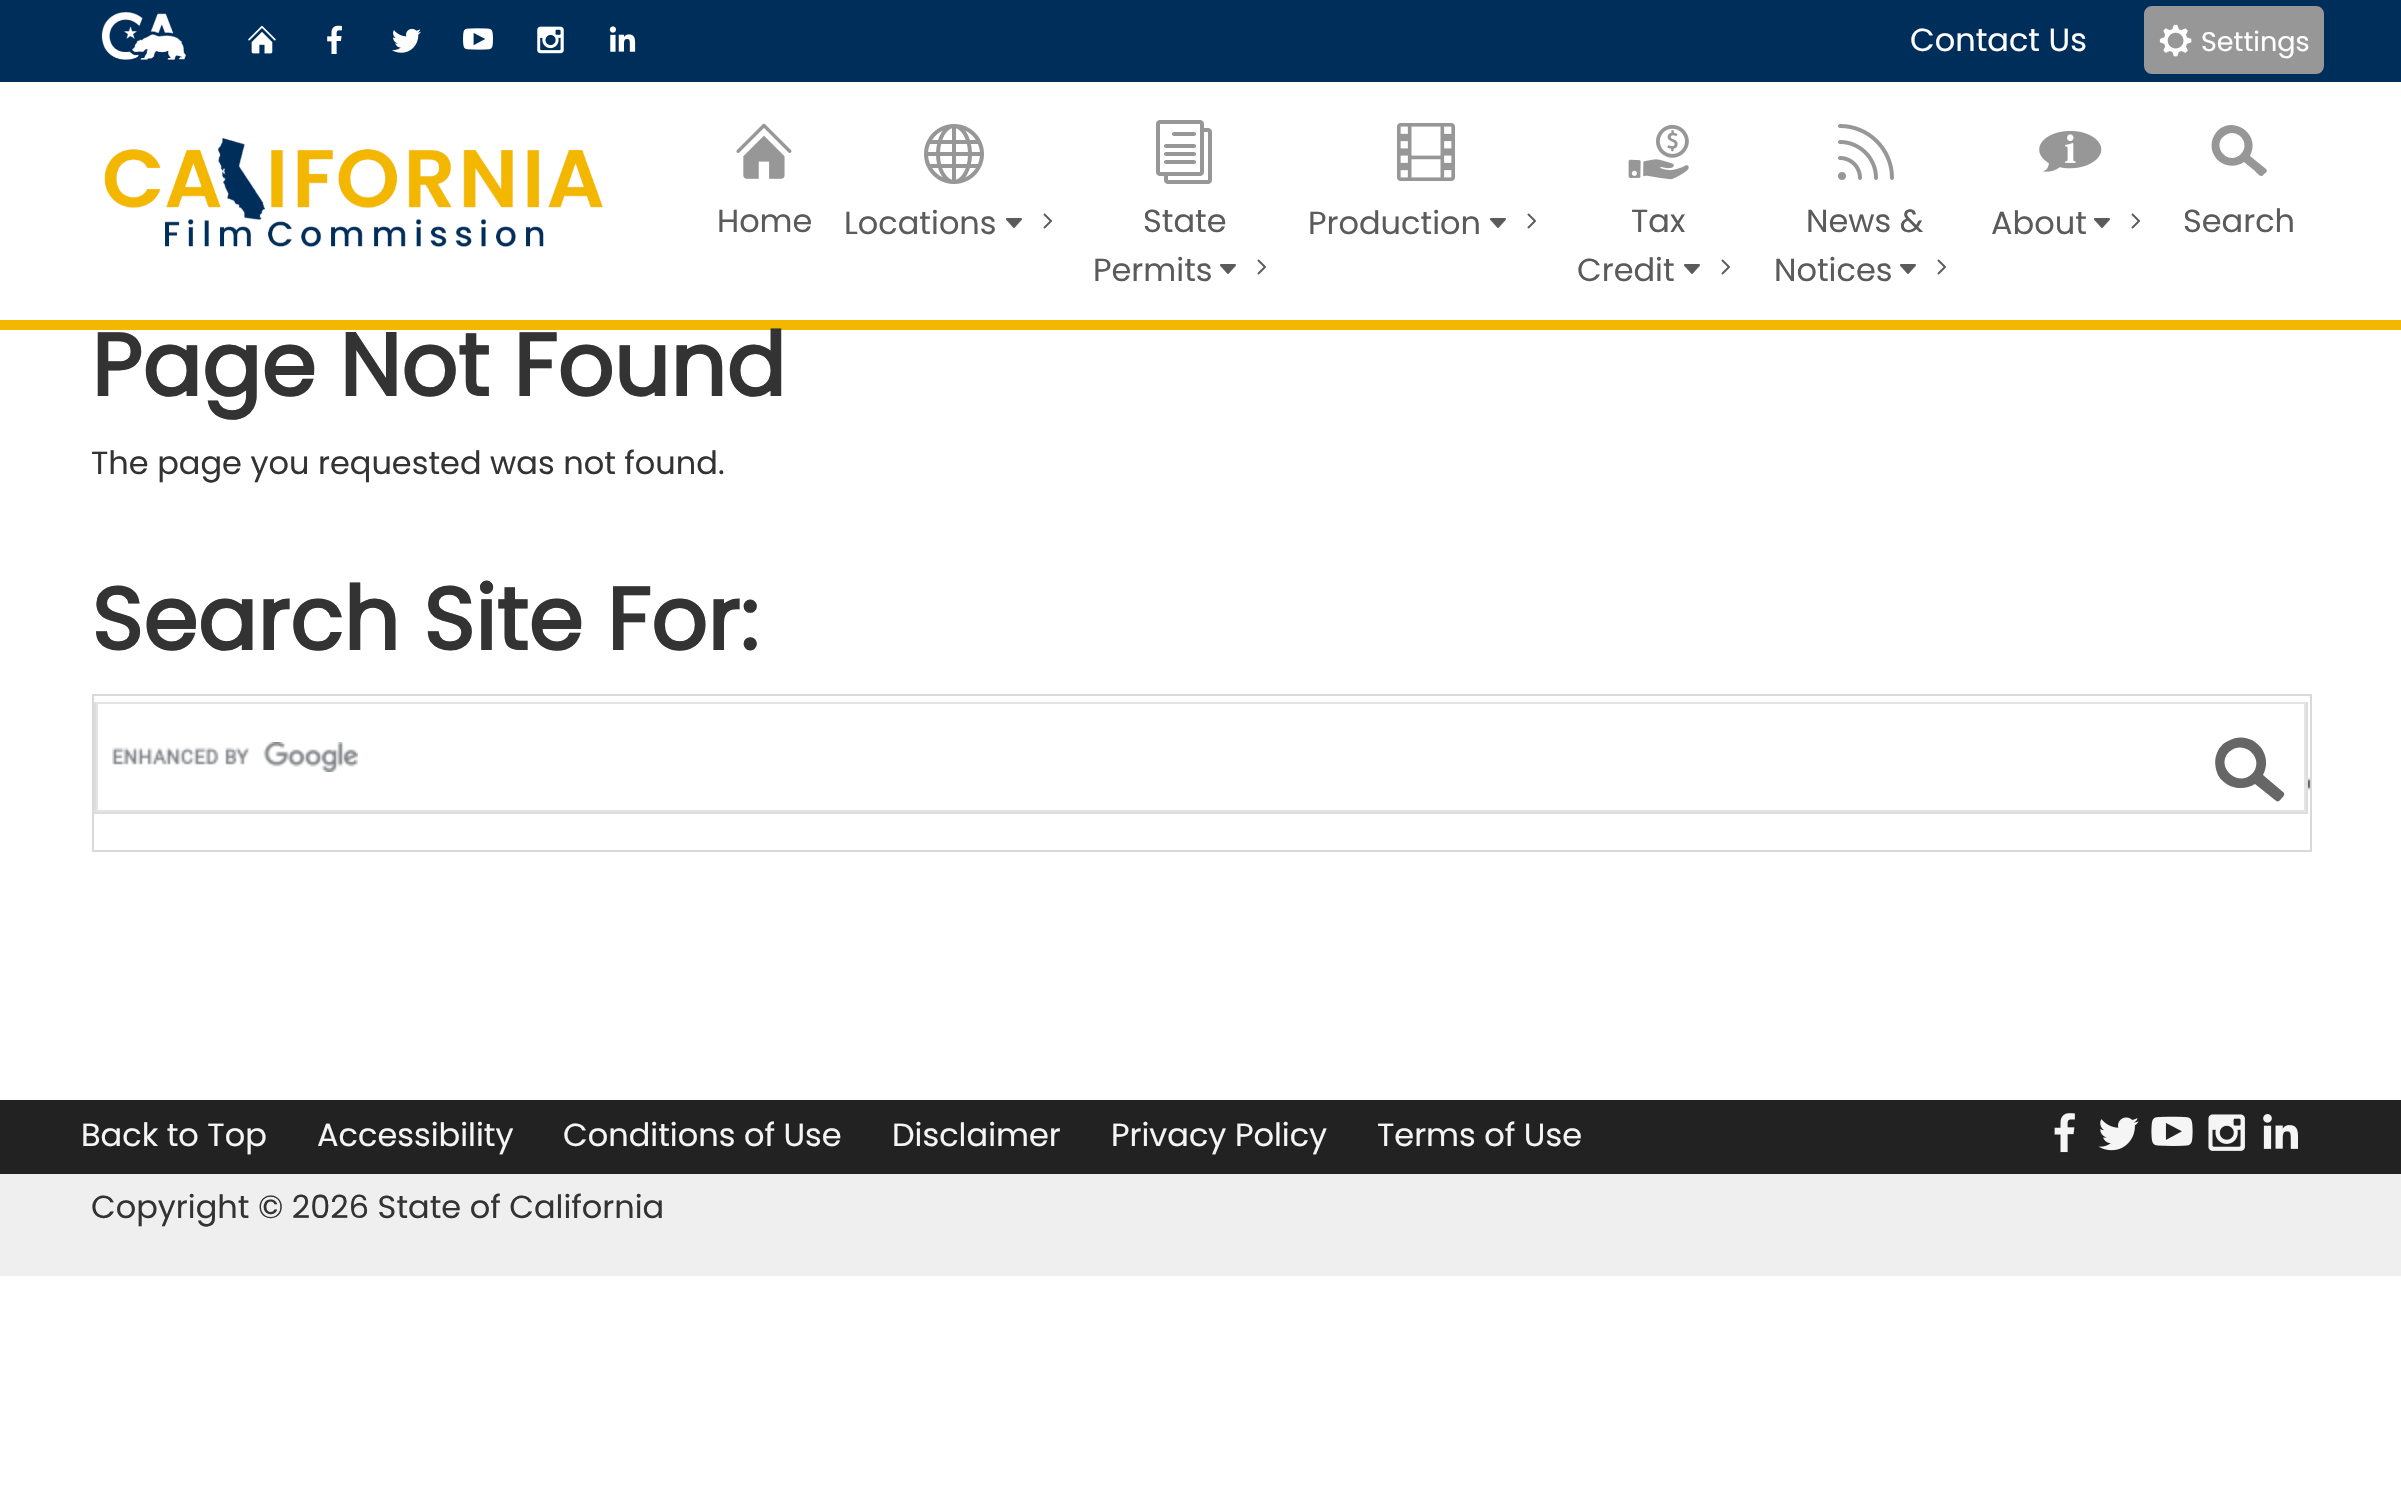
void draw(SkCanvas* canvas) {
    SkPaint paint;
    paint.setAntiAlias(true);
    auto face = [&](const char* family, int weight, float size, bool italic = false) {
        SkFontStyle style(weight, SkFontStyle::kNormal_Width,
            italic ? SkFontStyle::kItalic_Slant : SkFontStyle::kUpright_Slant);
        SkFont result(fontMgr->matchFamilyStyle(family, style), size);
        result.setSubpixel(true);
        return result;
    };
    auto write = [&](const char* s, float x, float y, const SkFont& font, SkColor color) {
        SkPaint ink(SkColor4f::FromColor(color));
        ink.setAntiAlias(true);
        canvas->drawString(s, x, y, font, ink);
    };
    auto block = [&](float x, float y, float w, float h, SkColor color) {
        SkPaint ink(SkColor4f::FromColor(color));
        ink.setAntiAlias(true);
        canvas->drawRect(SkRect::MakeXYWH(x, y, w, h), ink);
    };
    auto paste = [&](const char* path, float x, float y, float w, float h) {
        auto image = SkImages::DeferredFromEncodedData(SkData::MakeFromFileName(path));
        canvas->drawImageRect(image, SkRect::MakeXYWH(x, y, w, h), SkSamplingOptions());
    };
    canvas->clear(SK_ColorWHITE);
    block(0, 0, 2401, 82, SkColorSetRGB(0, 46, 91));
    paste("pic1.png", 101, 12, 85, 48);
    paste("pic2.png", 248, 25, 28, 29);
    paste("pic3.png", 327, 25, 15, 29);
    paste("pic4.png", 392, 28, 29, 25);
    paste("pic5.png", 463, 28, 30, 22);
    paste("pic6.png", 537, 26, 27, 28);
    paste("pic7.png", 609, 26, 27, 26);
    auto kFont1 = face("Poppins", 400, 32);
    write("Contact Us", 1910, 51, kFont1, SK_ColorWHITE);
    paint.setColor(SkColorSetRGB(151, 151, 151));
    canvas->drawRoundRect(SkRect::MakeXYWH(2145, 7, 178, 66), 7, 7, paint);
    paint.setStyle(SkPaint::kStroke_Style);
    paint.setStrokeWidth(2);
    canvas->drawRoundRect(SkRect::MakeXYWH(2145, 7, 178, 66), 7, 7, paint);
    paste("pic8.png", 2159, 24, 33, 33);
    auto kFont2 = face("Poppins", 400, 27);
    write("Settings", 2201, 51, kFont2, SK_ColorWHITE);
    paste("pic9.png", 104, 138, 499, 109);
    block(0, 320, 2401, 10, SkColorSetRGB(243, 183, 0));
    paste("pic10.png", 736, 123, 56, 56);
    write("Home", 717, 232, kFont1, SkColorSetRGB(91, 91, 91));
    paste("pic11.png", 924, 124, 60, 60);
    write("Locations", 844, 234, kFont1, SkColorSetRGB(91, 91, 91));
    paste("pic12.png", 1006, 218, 16, 10);
    paste("pic13.png", 1043, 213, 9, 16);
    paste("pic14.png", 1156, 120, 56, 64);
    write("State", 1143, 232, kFont1, SkColorSetRGB(91, 91, 91));
    write("Permits", 1093, 281, kFont1, SkColorSetRGB(91, 91, 91));
    paste("pic12.png", 1220, 264, 16, 10);
    paste("pic13.png", 1257, 259, 9, 16);
    paste("pic15.png", 1397, 123, 58, 58);
    write("Production", 1308, 234, kFont1, SkColorSetRGB(91, 91, 91));
    paste("pic12.png", 1490, 218, 16, 10);
    paste("pic13.png", 1527, 213, 9, 16);
    paste("pic16.png", 1628, 124, 61, 56);
    write("Tax", 1631, 232, kFont1, SkColorSetRGB(91, 91, 91));
    write("Credit", 1577, 281, kFont1, SkColorSetRGB(91, 91, 91));
    paste("pic12.png", 1684, 264, 16, 10);
    paste("pic13.png", 1721, 259, 9, 16);
    paste("pic17.png", 1838, 124, 56, 56);
    write("News &", 1806, 232, kFont1, SkColorSetRGB(91, 91, 91));
    write("Notices", 1774, 281, kFont1, SkColorSetRGB(91, 91, 91));
    paste("pic12.png", 1900, 264, 16, 10);
    paste("pic13.png", 1937, 259, 9, 16);
    paste("pic18.png", 2039, 130, 63, 42);
    write("About", 1991, 234, kFont1, SkColorSetRGB(91, 91, 91));
    paste("pic12.png", 2094, 218, 16, 10);
    paste("pic13.png", 2131, 213, 9, 16);
    paint.setStyle(SkPaint::kFill_Style);
    canvas->drawPath(SkPathBuilder().moveTo(2266, 169).lineTo(2250, 156).cubicTo(2263, 131, 2225, 111, 2213, 138).cubicTo(2211, 143, 2211, 150, 2214, 155).cubicTo(2220, 166, 2234, 169, 2244, 162).lineTo(2255, 171).cubicTo(2258, 174, 2261, 179, 2264, 174).cubicTo(2266, 173, 2268, 171, 2266, 169).close().moveTo(2241, 154).cubicTo(2229, 166, 2212, 148, 2223, 137).cubicTo(2235, 125, 2252, 142, 2241, 154).close().detach(), paint);
    write("Search", 2183, 232, kFont1, SkColorSetRGB(91, 91, 91));
    auto kFont3 = face("Poppins", 700, 88);
    write("Page Not Found", 91, 396, kFont3, SkColorSetRGB(51, 51, 51));
    write("The page you requested was not found.", 91, 474, kFont1, SkColorSetRGB(51, 51, 51));
    write("Search Site For:", 91, 650, kFont3, SkColorSetRGB(51, 51, 51));
    block(92, 694, 2220, 2, SkColorSetRGB(217, 217, 217));
    block(2310, 694, 2, 158, SkColorSetRGB(217, 217, 217));
    block(92, 850, 2220, 2, SkColorSetRGB(217, 217, 217));
    block(92, 694, 2, 158, SkColorSetRGB(217, 217, 217));
    block(96, 702, 2210, 2, SkColorSetRGB(248, 248, 248));
    block(2306, 702, 2, 112, SkColorSetRGB(221, 221, 221));
    block(94, 812, 2214, 2, SkColorSetRGB(221, 221, 221));
    block(94, 702, 2, 112, SkColorSetRGB(221, 221, 221));
    paste("pic19.png", 112, 742, 246, 30);
    paint.setStyle(SkPaint::kStroke_Style);
    paint.setColor(SkColorSetARGB(204, 221, 221, 221));
    canvas->drawRect(SkRect::MakeXYWH(97, 703, 2208, 108), paint);
    paint.setStyle(SkPaint::kFill_Style);
    paint.setColor(SkColorSetRGB(102, 102, 102));
    canvas->drawPath(SkPathBuilder().moveTo(2283, 792).lineTo(2263, 775).cubicTo(2275, 753, 2251, 728, 2228, 741).cubicTo(2223, 743, 2219, 748, 2217, 753).cubicTo(2214, 760, 2215, 768, 2218, 775).cubicTo(2225, 788, 2243, 792, 2255, 784).lineTo(2275, 800).cubicTo(2277, 802, 2279, 802, 2281, 799).cubicTo(2283, 797, 2286, 794, 2283, 792).close().moveTo(2252, 774).cubicTo(2237, 788, 2215, 766, 2229, 752).cubicTo(2244, 738, 2266, 759, 2252, 774).close().detach(), paint);
    paste("pic20.png", 2308, 777, 2, 14);
    block(0, 1100, 2401, 74, SkColorSetRGB(34, 34, 34));
    write("Back to Top", 81, 1146, kFont1, SkColorSetRGB(245, 245, 245));
    write("Accessibility", 317, 1146, kFont1, SkColorSetRGB(245, 245, 245));
    write("Conditions of Use", 563, 1146, kFont1, SkColorSetRGB(245, 245, 245));
    write("Disclaimer", 892, 1146, kFont1, SkColorSetRGB(245, 245, 245));
    write("Privacy Policy", 1111, 1146, kFont1, SkColorSetRGB(245, 245, 245));
    write("Terms of Use", 1377, 1146, kFont1, SkColorSetRGB(245, 245, 245));
    paste("pic21.png", 2054, 1113, 21, 40);
    paste("pic22.png", 2098, 1117, 41, 34);
    paste("pic23.png", 2151, 1116, 42, 30);
    paste("pic24.png", 2208, 1114, 37, 37);
    paste("pic25.png", 2263, 1114, 35, 35);
    block(0, 1174, 2401, 102, SkColorSetRGB(239, 239, 239));
    write("Copyright © 2026 State of California", 91, 1218, kFont1, SkColorSetRGB(51, 51, 51));
}
